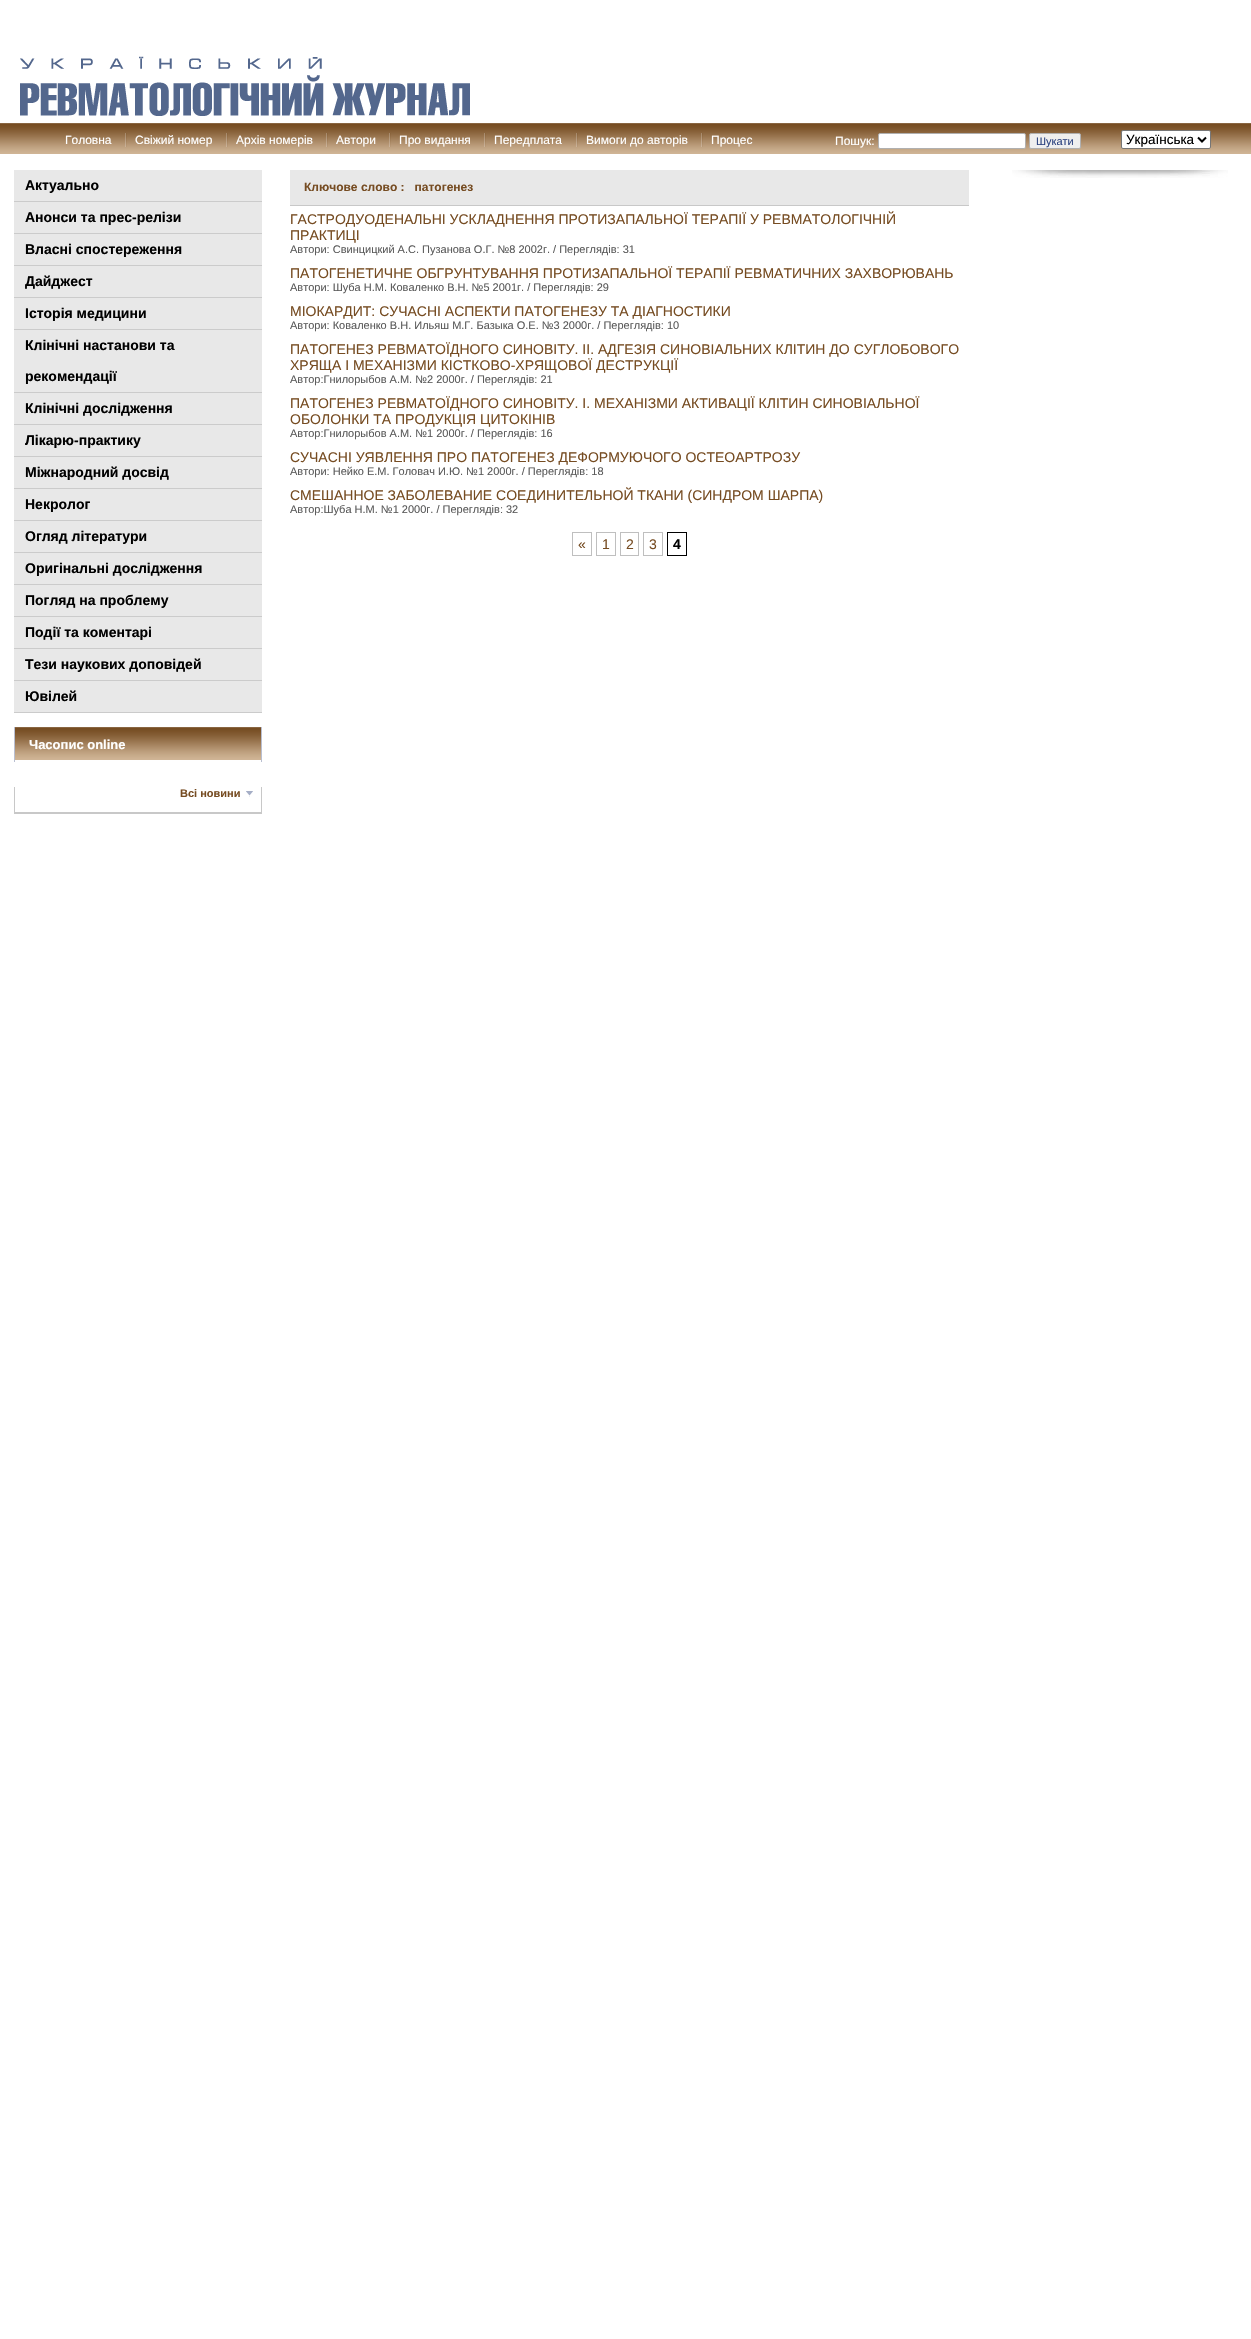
void draw(SkCanvas* canvas) {
    SkPaint paint;
    paint.setAntiAlias(true);
    auto face = [&](const char* family, int weight, float size, bool italic = false) {
        SkFontStyle style(weight, SkFontStyle::kNormal_Width,
            italic ? SkFontStyle::kItalic_Slant : SkFontStyle::kUpright_Slant);
        SkFont result(fontMgr->matchFamilyStyle(family, style), size);
        result.setSubpixel(true);
        return result;
    };
    auto write = [&](const char* s, float x, float y, const SkFont& font, SkColor color) {
        SkPaint ink(SkColor4f::FromColor(color));
        ink.setAntiAlias(true);
        canvas->drawString(s, x, y, font, ink);
    };
    auto block = [&](float x, float y, float w, float h, SkColor color) {
        SkPaint ink(SkColor4f::FromColor(color));
        ink.setAntiAlias(true);
        canvas->drawRect(SkRect::MakeXYWH(x, y, w, h), ink);
    };
    auto paste = [&](const char* path, float x, float y, float w, float h) {
        auto image = SkImages::DeferredFromEncodedData(SkData::MakeFromFileName(path));
        canvas->drawImageRect(image, SkRect::MakeXYWH(x, y, w, h), SkSamplingOptions());
    };
    canvas->clear(SK_ColorWHITE);
    paste("pic1.png", 20, 56, 450, 60);
    paste("pic2.png", 0, 123, 1251, 31);
    auto kFont1 = face("Liberation Sans", 400, 12);
    write("Головна", 65, 144, kFont1, SK_ColorWHITE);
    paste("pic3.png", 125, 133, 2, 14);
    write("Свіжий номер", 135, 144, kFont1, SK_ColorWHITE);
    paste("pic3.png", 226, 133, 2, 14);
    write("Архів номерів", 236, 144, kFont1, SK_ColorWHITE);
    paste("pic3.png", 326, 133, 2, 14);
    write("Автори", 336, 144, kFont1, SK_ColorWHITE);
    paste("pic3.png", 389, 133, 2, 14);
    write("Про видання", 399, 144, kFont1, SK_ColorWHITE);
    paste("pic3.png", 484, 133, 2, 14);
    write("Передплата", 494, 144, kFont1, SK_ColorWHITE);
    paste("pic3.png", 576, 133, 2, 14);
    write("Вимоги до авторів", 586, 144, kFont1, SK_ColorWHITE);
    paste("pic3.png", 701, 133, 2, 14);
    write("Процес", 711, 144, kFont1, SK_ColorWHITE);
    write("Пошук:", 835, 145, kFont1, SK_ColorWHITE);
    paint.setColor(SK_ColorWHITE);
    canvas->drawRoundRect(SkRect::MakeXYWH(878.5f, 133.5f, 147, 15), 1.5f, 1.5f, paint);
    paint.setStyle(SkPaint::kStroke_Style);
    paint.setStrokeWidth(1);
    paint.setColor(SkColorSetRGB(176, 176, 176));
    canvas->drawRoundRect(SkRect::MakeXYWH(878.5f, 133.5f, 147, 15), 1.5f, 1.5f, paint);
    paint.setStyle(SkPaint::kFill_Style);
    paint.setColor(SkColorSetRGB(239, 239, 239));
    canvas->drawRoundRect(SkRect::MakeXYWH(1029.5f, 133.5f, 51, 15), 1.5f, 1.5f, paint);
    paint.setStyle(SkPaint::kStroke_Style);
    paint.setColor(SkColorSetRGB(176, 176, 176));
    canvas->drawRoundRect(SkRect::MakeXYWH(1029.5f, 133.5f, 51, 15), 1.5f, 1.5f, paint);
    auto kFont2 = face("Liberation Sans", 400, 11);
    write("Шукати", 1036, 145, kFont2, SkColorSetRGB(44, 67, 128));
    paint.setStyle(SkPaint::kFill_Style);
    paint.setColor(SK_ColorWHITE);
    canvas->drawRoundRect(SkRect::MakeXYWH(1121.5f, 130.5f, 89, 18), 1.5f, 1.5f, paint);
    paint.setStyle(SkPaint::kStroke_Style);
    paint.setColor(SkColorSetRGB(118, 118, 118));
    canvas->drawRoundRect(SkRect::MakeXYWH(1121.5f, 130.5f, 89, 18), 1.5f, 1.5f, paint);
    paint.setStrokeWidth(2);
    paint.setColor(SK_ColorBLACK);
    canvas->drawPath(SkPathBuilder().moveTo(1198, 137.5f).lineTo(1202, 141.5f).lineTo(1206, 137.5f).detach(), paint);
    auto kFont3 = face("Liberation Sans", 400, 13.5f);
    write("Українська", 1126, 144, kFont3, SK_ColorBLACK);
    paste("pic4.png", 1012, 170, 216, 8);
    block(14, 170, 248, 31, SkColorSetRGB(232, 232, 232));
    block(14, 201, 248, 1, SkColorSetRGB(203, 203, 203));
    auto kFont4 = face("Liberation Sans", 700, 14);
    write("Актуально", 25, 190, kFont4, SK_ColorBLACK);
    block(14, 202, 248, 31, SkColorSetRGB(232, 232, 232));
    block(14, 233, 248, 1, SkColorSetRGB(203, 203, 203));
    write("Анонси та прес-релізи", 25, 222, kFont4, SK_ColorBLACK);
    block(14, 234, 248, 31, SkColorSetRGB(232, 232, 232));
    block(14, 265, 248, 1, SkColorSetRGB(203, 203, 203));
    write("Власні спостереження", 25, 254, kFont4, SK_ColorBLACK);
    block(14, 266, 248, 31, SkColorSetRGB(232, 232, 232));
    block(14, 297, 248, 1, SkColorSetRGB(203, 203, 203));
    write("Дайджест", 25, 286, kFont4, SK_ColorBLACK);
    block(14, 298, 248, 31, SkColorSetRGB(232, 232, 232));
    block(14, 329, 248, 1, SkColorSetRGB(203, 203, 203));
    write("Історія медицини", 25, 318, kFont4, SK_ColorBLACK);
    block(14, 330, 248, 62, SkColorSetRGB(232, 232, 232));
    block(14, 392, 248, 1, SkColorSetRGB(203, 203, 203));
    write("Клінiчні настанови та", 25, 350, kFont4, SK_ColorBLACK);
    write("рекомендації", 25, 381, kFont4, SK_ColorBLACK);
    block(14, 393, 248, 31, SkColorSetRGB(232, 232, 232));
    block(14, 424, 248, 1, SkColorSetRGB(203, 203, 203));
    write("Клінічні дослідження", 25, 413, kFont4, SK_ColorBLACK);
    block(14, 425, 248, 31, SkColorSetRGB(232, 232, 232));
    block(14, 456, 248, 1, SkColorSetRGB(203, 203, 203));
    write("Лікарю-практику", 25, 445, kFont4, SK_ColorBLACK);
    block(14, 457, 248, 31, SkColorSetRGB(232, 232, 232));
    block(14, 488, 248, 1, SkColorSetRGB(203, 203, 203));
    write("Міжнародний досвід", 25, 477, kFont4, SK_ColorBLACK);
    block(14, 489, 248, 31, SkColorSetRGB(232, 232, 232));
    block(14, 520, 248, 1, SkColorSetRGB(203, 203, 203));
    write("Некролог", 25, 509, kFont4, SK_ColorBLACK);
    block(14, 521, 248, 31, SkColorSetRGB(232, 232, 232));
    block(14, 552, 248, 1, SkColorSetRGB(203, 203, 203));
    write("Огляд літератури", 25, 541, kFont4, SK_ColorBLACK);
    block(14, 553, 248, 31, SkColorSetRGB(232, 232, 232));
    block(14, 584, 248, 1, SkColorSetRGB(203, 203, 203));
    write("Оригінальні дослідження", 25, 573, kFont4, SK_ColorBLACK);
    block(14, 585, 248, 31, SkColorSetRGB(232, 232, 232));
    block(14, 616, 248, 1, SkColorSetRGB(203, 203, 203));
    write("Погляд на проблему", 25, 605, kFont4, SK_ColorBLACK);
    block(14, 617, 248, 31, SkColorSetRGB(232, 232, 232));
    block(14, 648, 248, 1, SkColorSetRGB(203, 203, 203));
    write("Події та коментарі", 25, 637, kFont4, SK_ColorBLACK);
    block(14, 649, 248, 31, SkColorSetRGB(232, 232, 232));
    block(14, 680, 248, 1, SkColorSetRGB(203, 203, 203));
    write("Тези наукових доповідей", 25, 669, kFont4, SK_ColorBLACK);
    block(14, 681, 248, 31, SkColorSetRGB(232, 232, 232));
    block(14, 712, 248, 1, SkColorSetRGB(203, 203, 203));
    write("Ювілей", 25, 701, kFont4, SK_ColorBLACK);
    paste("pic5.png", 15, 727, 246, 33);
    block(261, 727, 1, 35, SkColorSetRGB(185, 191, 209));
    block(14, 727, 1, 35, SkColorSetRGB(185, 191, 209));
    auto kFont5 = face("Liberation Sans", 700, 13);
    write("Часопис online", 29, 749, kFont5, SK_ColorWHITE);
    block(261, 787, 1, 27, SkColorSetRGB(200, 200, 200));
    block(14, 812, 248, 2, SkColorSetRGB(200, 200, 200));
    block(14, 787, 1, 27, SkColorSetRGB(200, 200, 200));
    auto kFont6 = face("Liberation Sans", 700, 11);
    write("Всі новини", 180, 797, kFont6, SkColorSetRGB(118, 76, 34));
    paste("pic6.png", 246, 791, 7, 6);
    block(290, 170, 679, 35, SkColorSetRGB(232, 232, 232));
    block(290, 205, 679, 1, SkColorSetRGB(200, 200, 200));
    auto kFont7 = face("Liberation Sans", 700, 12);
    write("Ключове слово :   пaтoгeнeз", 304, 191, kFont7, SkColorSetRGB(118, 76, 34));
    auto kFont8 = face("Liberation Sans", 400, 14);
    write("ГАСТРОДУОДЕНАЛЬНІ УСКЛАДНЕННЯ ПРОТИЗАПАЛЬНОЇ ТЕРАПІЇ У РЕВМАТОЛОГІЧНІЙ", 290, 224, kFont8, SkColorSetRGB(118, 76, 34));
    write("ПРАКТИЦІ", 290, 240, kFont8, SkColorSetRGB(118, 76, 34));
    write("Автори: Свинцицкий А.С. Пузанова О.Г. №8 2002г. / Переглядів: 31", 290, 253, kFont2, SkColorSetRGB(90, 90, 90));
    write("ПАТОГЕНЕТИЧНЕ ОБГРУНТУВАННЯ ПРОТИЗАПАЛЬНОЇ ТЕРАПІЇ РЕВМАТИЧНИХ ЗАХВОРЮВАНЬ", 290, 278, kFont8, SkColorSetRGB(118, 76, 34));
    write("Автори: Шуба Н.М. Коваленко В.Н. №5 2001г. / Переглядів: 29", 290, 291, kFont2, SkColorSetRGB(90, 90, 90));
    write("МІОКАРДИТ: СУЧАСНІ АСПЕКТИ ПАТОГЕНЕЗУ ТА ДІАГНОСТИКИ", 290, 316, kFont8, SkColorSetRGB(118, 76, 34));
    write("Автори: Коваленко В.Н. Ильяш М.Г. Базыка O.E. №3 2000г. / Переглядів: 10", 290, 329, kFont2, SkColorSetRGB(90, 90, 90));
    write("ПАТОГЕНЕЗ РЕВМАТОЇДНОГО СИНОВІТУ. II. АДГЕЗІЯ СИНОВІАЛЬНИХ КЛІТИН ДО СУГЛОБОВОГО", 290, 354, kFont8, SkColorSetRGB(118, 76, 34));
    write("ХРЯЩА І МЕХАНІЗМИ КІСТКОВО-ХРЯЩОВОЇ ДЕСТРУКЦІЇ", 290, 370, kFont8, SkColorSetRGB(118, 76, 34));
    write("Автор:Гнилорыбов A.М. №2 2000г. / Переглядів: 21", 290, 383, kFont2, SkColorSetRGB(90, 90, 90));
    write("ПАТОГЕНЕЗ РЕВМАТОЇДНОГО СИНОВІТУ. І. МЕХАНІЗМИ АКТИВАЦІЇ КЛІТИН СИНОВІАЛЬНОЇ", 290, 408, kFont8, SkColorSetRGB(118, 76, 34));
    write("ОБОЛОНКИ ТА ПРОДУКЦІЯ ЦИТОКІНІВ", 290, 424, kFont8, SkColorSetRGB(118, 76, 34));
    write("Автор:Гнилорыбов A.М. №1 2000г. / Переглядів: 16", 290, 437, kFont2, SkColorSetRGB(90, 90, 90));
    write("СУЧАСНІ УЯВЛЕННЯ ПРО ПАТОГЕНЕЗ ДЕФОРМУЮЧОГО ОСТЕОАРТРОЗУ", 290, 462, kFont8, SkColorSetRGB(118, 76, 34));
    write("Автори: Нейко Е.М. Головач И.Ю. №1 2000г. / Переглядів: 18", 290, 475, kFont2, SkColorSetRGB(90, 90, 90));
    write("СМЕШАННОЕ ЗАБОЛЕВАНИЕ СОЕДИНИТЕЛЬНОЙ ТКАНИ (СИНДРОМ ШАРПА)", 290, 500, kFont8, SkColorSetRGB(118, 76, 34));
    write("Автор:Шуба Н.М. №1 2000г. / Переглядів: 32", 290, 513, kFont2, SkColorSetRGB(90, 90, 90));
    paint.setStrokeWidth(1);
    paint.setColor(SkColorSetRGB(191, 191, 191));
    canvas->drawRect(SkRect::MakeXYWH(572.5f, 532.5f, 19, 23), paint);
    write("«", 578, 549, kFont8, SkColorSetRGB(118, 76, 34));
    canvas->drawRect(SkRect::MakeXYWH(596.5f, 532.5f, 19, 23), paint);
    write("1", 602, 549, kFont8, SkColorSetRGB(118, 76, 34));
    canvas->drawRect(SkRect::MakeXYWH(620.5f, 532.5f, 18, 23), paint);
    write("2", 626, 549, kFont8, SkColorSetRGB(118, 76, 34));
    canvas->drawRect(SkRect::MakeXYWH(643.5f, 532.5f, 19, 23), paint);
    write("3", 649, 549, kFont8, SkColorSetRGB(118, 76, 34));
    paint.setColor(SK_ColorBLACK);
    canvas->drawRect(SkRect::MakeXYWH(667.5f, 532.5f, 19, 23), paint);
    write("4", 673, 549, kFont4, SK_ColorBLACK);
}
